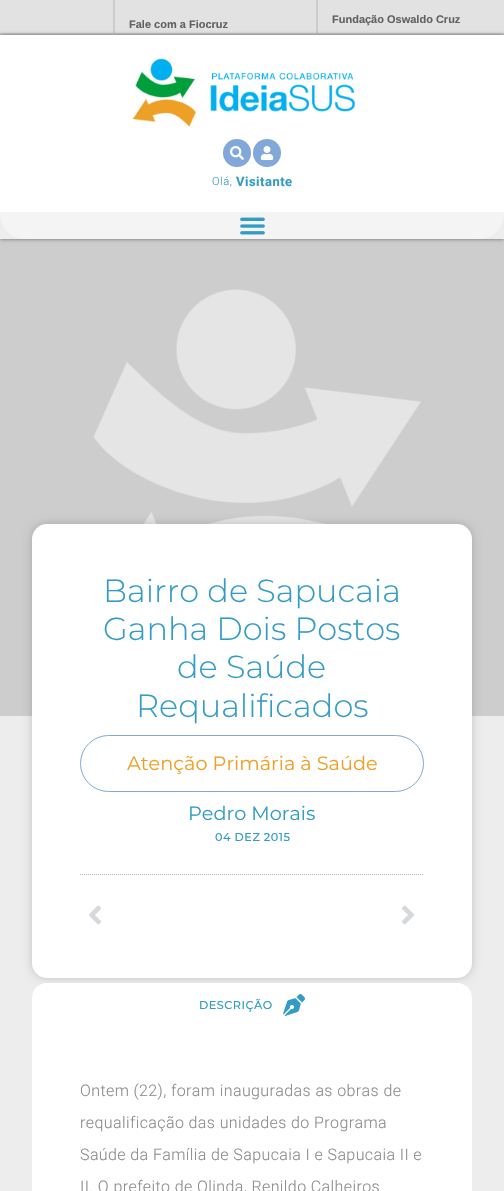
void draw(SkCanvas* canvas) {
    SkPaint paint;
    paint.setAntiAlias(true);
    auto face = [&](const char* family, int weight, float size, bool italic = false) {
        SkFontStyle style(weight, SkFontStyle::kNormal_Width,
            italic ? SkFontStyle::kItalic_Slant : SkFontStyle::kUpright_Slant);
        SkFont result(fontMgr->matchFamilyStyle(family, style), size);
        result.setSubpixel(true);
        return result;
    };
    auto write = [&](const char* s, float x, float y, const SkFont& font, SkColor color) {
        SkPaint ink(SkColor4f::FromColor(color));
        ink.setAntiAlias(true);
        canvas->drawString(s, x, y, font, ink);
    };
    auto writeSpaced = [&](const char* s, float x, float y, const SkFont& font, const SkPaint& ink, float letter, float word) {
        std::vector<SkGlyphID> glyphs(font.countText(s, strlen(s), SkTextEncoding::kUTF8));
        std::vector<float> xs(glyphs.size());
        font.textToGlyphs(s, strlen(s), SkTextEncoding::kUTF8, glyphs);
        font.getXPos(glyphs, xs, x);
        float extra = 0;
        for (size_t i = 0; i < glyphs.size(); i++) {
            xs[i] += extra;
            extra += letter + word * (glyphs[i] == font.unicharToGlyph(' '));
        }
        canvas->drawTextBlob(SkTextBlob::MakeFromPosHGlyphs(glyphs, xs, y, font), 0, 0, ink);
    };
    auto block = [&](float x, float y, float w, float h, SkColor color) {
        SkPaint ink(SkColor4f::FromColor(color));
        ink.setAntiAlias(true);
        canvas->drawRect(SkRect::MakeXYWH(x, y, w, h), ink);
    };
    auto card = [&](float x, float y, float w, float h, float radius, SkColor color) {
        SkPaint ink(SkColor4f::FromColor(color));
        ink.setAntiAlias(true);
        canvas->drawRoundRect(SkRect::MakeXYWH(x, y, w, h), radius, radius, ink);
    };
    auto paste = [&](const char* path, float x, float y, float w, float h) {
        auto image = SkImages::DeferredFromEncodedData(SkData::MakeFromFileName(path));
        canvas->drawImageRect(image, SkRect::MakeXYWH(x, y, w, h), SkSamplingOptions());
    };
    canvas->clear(SkColorSetRGB(237, 237, 237));
    block(0, 0, 504, 33, SkColorSetRGB(226, 226, 226));
    block(0, 33, 504, 2, SkColorSetRGB(204, 204, 204));
    block(113, 0, 2, 35, SkColorSetRGB(204, 204, 204));
    auto kFont1 = face("Liberation Sans", 700, 11);
    write("Fale com a Fiocruz", 129, 28, kFont1, SkColorSetRGB(96, 96, 96));
    block(316, 0, 2, 35, SkColorSetRGB(204, 204, 204));
    write("Fundação Oswaldo Cruz", 332, 23, kFont1, SkColorSetRGB(96, 96, 96));
    paste("pic5.png", 0, 239, 504, 477);
    canvas->save();
    canvas->clipPath(SkPathBuilder(SkPathFillType::kEvenOdd).moveTo(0, 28).lineTo(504, 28).lineTo(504, 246).lineTo(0, 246).close().moveTo(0, 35).lineTo(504, 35).lineTo(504, 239).lineTo(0, 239).close().detach(), true);
    paint.setColor(SkColorSetARGB(128, 0, 0, 0));
    paint.setMaskFilter(SkMaskFilter::MakeBlur(kNormal_SkBlurStyle, 2));
    canvas->drawRect(SkRect::MakeXYWH(0, 35, 504, 204), paint);
    paint.setMaskFilter(nullptr);
    canvas->restore();
    block(0, 35, 504, 177, SK_ColorWHITE);
    paste("pic1.png", 132, 58, 224, 69);
    paint.setColor(SkColorSetRGB(129, 168, 216));
    canvas->drawCircle(237, 153, 14, paint);
    paste("pic2.png", 230, 146, 14, 14);
    canvas->drawCircle(267, 153, 14, paint);
    paste("pic3.png", 260, 146, 14, 14);
    auto kFont2 = face("Roboto", 300, 11.25f);
    paint.setColor(SkColorSetRGB(50, 156, 196));
    writeSpaced("Olá,", 212, 185, kFont2, paint, 0.5f, 0);
    auto kFont3 = face("Roboto", 700, 13);
    writeSpaced("Visitante", 236, 186, kFont3, paint, 0.5f, 0);
    paint.setColor(SkColorSetRGB(244, 244, 244));
    canvas->drawPath(SkPathBuilder().moveTo(0, 212).lineTo(504, 212).lineTo(504, 214).cubicTo(504, 228, 493, 239, 479, 239).lineTo(25, 239).cubicTo(11, 239, 0, 228, 0, 214).close().detach(), paint);
    paste("pic4.png", 240, 217, 25, 18);
    paint.setColor(SkColorSetARGB(48, 0, 0, 0));
    paint.setMaskFilter(SkMaskFilter::MakeBlur(kNormal_SkBlurStyle, 5));
    canvas->drawRoundRect(SkRect::MakeXYWH(32, 524, 440, 454), 15, 15, paint);
    paint.setMaskFilter(nullptr);
    card(32, 524, 440, 454, 15, SK_ColorWHITE);
    auto kFont4 = face("Montserrat", 300, 32);
    write("Bairro de Sapucaia", 103, 602, kFont4, SkColorSetRGB(50, 156, 196));
    write("Ganha Dois Postos", 103, 640, kFont4, SkColorSetRGB(50, 156, 196));
    write("de Saúde", 177, 678, kFont4, SkColorSetRGB(50, 156, 196));
    write("Requalificados", 136, 717, kFont4, SkColorSetRGB(50, 156, 196));
    paint.setStyle(SkPaint::kStroke_Style);
    paint.setStrokeWidth(1);
    paint.setColor(SkColorSetRGB(129, 168, 216));
    canvas->drawRoundRect(SkRect::MakeXYWH(80.5f, 735.5f, 343, 56), 28, 28, paint);
    auto kFont5 = face("Montserrat", 400, 19.25f);
    write("Atenção Primária à Saúde", 127, 770, kFont5, SkColorSetRGB(237, 160, 37));
    write("Pedro Morais", 188, 820, kFont5, SkColorSetRGB(50, 156, 196));
    auto kFont6 = face("Montserrat", 500, 11.25f);
    paint.setStyle(SkPaint::kFill_Style);
    paint.setColor(SkColorSetRGB(50, 156, 196));
    writeSpaced("04 DEZ 2015", 215, 841, kFont6, paint, 0.5f, 0);
    paint.setStyle(SkPaint::kStroke_Style);
    paint.setColor(SkColorSetRGB(177, 177, 177));
    paint.setPathEffect(SkDashPathEffect::Make({{1, 1}}, 0));
    canvas->drawPath(SkPathBuilder().moveTo(80, 874.5f).lineTo(424, 874.5f).detach(), paint);
    paint.setPathEffect(nullptr);
    paste("pic6.png", 89, 905, 12, 20);
    paste("pic7.png", 402, 905, 12, 20);
    paint.setStyle(SkPaint::kFill_Style);
    paint.setColor(SK_ColorWHITE);
    canvas->drawPath(SkPathBuilder().moveTo(47, 983).lineTo(457, 983).cubicTo(465.5f, 983, 472, 989.5f, 472, 998).lineTo(472, 1027).lineTo(32, 1027).lineTo(32, 998).cubicTo(32, 989.5f, 38.5f, 983, 47, 983).close().detach(), paint);
    paint.setColor(SkColorSetRGB(50, 156, 196));
    writeSpaced("DESCRIÇÃO", 199, 1009, kFont6, paint, 0.5f, 0);
    paste("pic8.png", 283, 994, 22, 22);
    block(32, 1027, 440, 164, SK_ColorWHITE);
    auto kFont7 = face("Roboto", 300, 16);
    paint.setColor(SkColorSetRGB(139, 139, 139));
    writeSpaced("Ontem (22), foram inauguradas as obras de", 80, 1096, kFont7, paint, 0.4f, 0);
    writeSpaced("requalificação das unidades do Programa", 80, 1128, kFont7, paint, 0.4f, 0);
    writeSpaced("Saúde da Família de Sapucaia I e Sapucaia II e", 80, 1160, kFont7, paint, 0.4f, 0);
    writeSpaced("II. O prefeito de Olinda, Renildo Calheiros", 80, 1192, kFont7, paint, 0.4f, 0);
}
